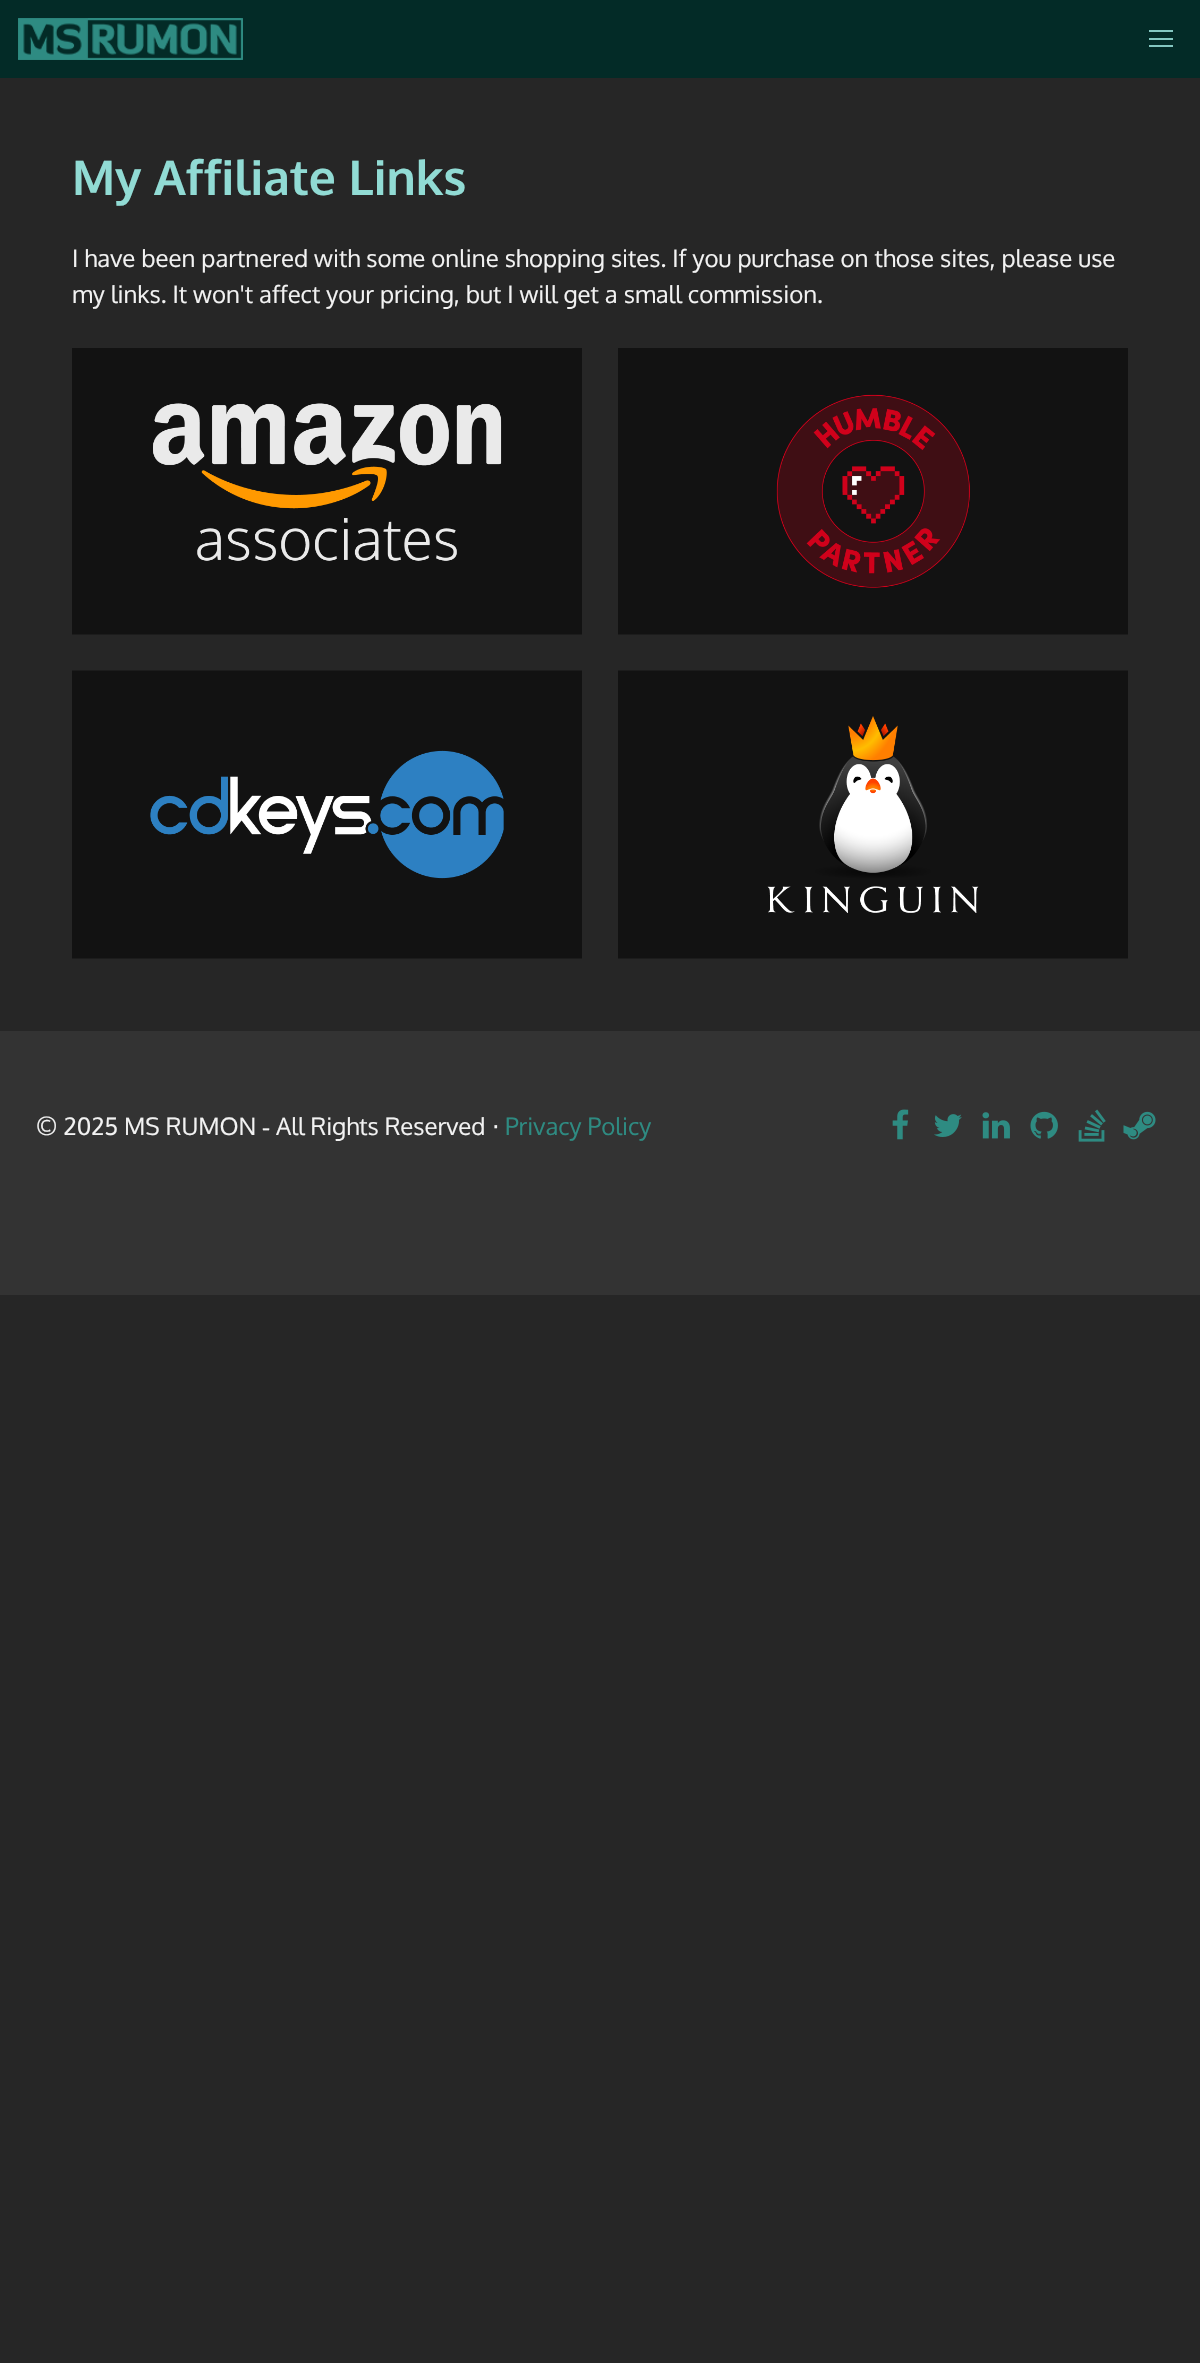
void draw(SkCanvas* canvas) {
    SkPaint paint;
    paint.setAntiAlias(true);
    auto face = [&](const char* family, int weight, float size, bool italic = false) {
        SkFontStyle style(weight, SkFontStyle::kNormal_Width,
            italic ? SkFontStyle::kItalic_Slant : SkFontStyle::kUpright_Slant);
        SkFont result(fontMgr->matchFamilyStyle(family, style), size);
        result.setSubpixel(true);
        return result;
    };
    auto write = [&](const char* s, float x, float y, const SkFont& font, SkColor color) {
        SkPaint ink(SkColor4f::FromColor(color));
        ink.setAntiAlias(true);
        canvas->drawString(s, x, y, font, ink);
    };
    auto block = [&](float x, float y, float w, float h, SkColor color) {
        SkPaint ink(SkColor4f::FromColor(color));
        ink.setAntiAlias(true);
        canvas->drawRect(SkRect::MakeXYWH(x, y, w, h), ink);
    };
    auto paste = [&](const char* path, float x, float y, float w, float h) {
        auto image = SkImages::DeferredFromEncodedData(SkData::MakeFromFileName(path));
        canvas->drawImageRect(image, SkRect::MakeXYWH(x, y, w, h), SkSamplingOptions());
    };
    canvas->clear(SkColorSetRGB(38, 38, 38));
    block(0, 0, 1200, 78, SkColorSetRGB(3, 43, 39));
    paste("pic1.png", 18, 18, 225, 42);
    block(1149, 30, 24, 2, SkColorSetRGB(132, 199, 193));
    block(1149, 38, 24, 2, SkColorSetRGB(132, 199, 193));
    block(1149, 45, 24, 2, SkColorSetRGB(132, 199, 193));
    auto kFont1 = face("Oxygen", 700, 48);
    write("My Affiliate Links", 72, 195, kFont1, SkColorSetRGB(145, 219, 212));
    auto kFont2 = face("Oxygen", 400, 24);
    write("I have been partnered with some online shopping sites. If you purchase on those sites, please use", 72, 267, kFont2, SkColorSetRGB(242, 242, 242));
    write("my links. It won't affect your pricing, but I will get a small commission.", 72, 303, kFont2, SkColorSetRGB(242, 242, 242));
    paste("pic2.png", 72, 348, 510, 287);
    paste("pic3.png", 618, 348, 510, 287);
    paste("pic4.png", 72, 670, 510, 289);
    paste("pic5.png", 618, 670, 510, 289);
    block(0, 1031, 1200, 264, SkColorSetRGB(51, 51, 51));
    write("© 2025 MS RUMON", 36, 1135, kFont2, SkColorSetRGB(242, 242, 242));
    write("All Rights Reserved", 276, 1135, kFont2, SkColorSetRGB(242, 242, 242));
    auto kFont3 = face("DejaVu Sans", 400, 24);
    write("⋅", 492, 1135, kFont3, SkColorSetRGB(242, 242, 242));
    write("Privacy Policy", 505, 1135, kFont2, SkColorSetRGB(46, 139, 130));
    auto kFont4 = face("Liberation Serif", 400, 24);
    write("‐", 262, 1135, kFont4, SkColorSetRGB(242, 242, 242));
    paste("pic6.png", 892, 1109, 17, 31);
    paste("pic7.png", 934, 1114, 28, 23);
    paste("pic8.png", 982, 1112, 28, 27);
    paste("pic9.png", 1030, 1111, 28, 28);
    paste("pic10.png", 1078, 1109, 28, 33);
    paste("pic11.png", 1123, 1111, 33, 29);
}
